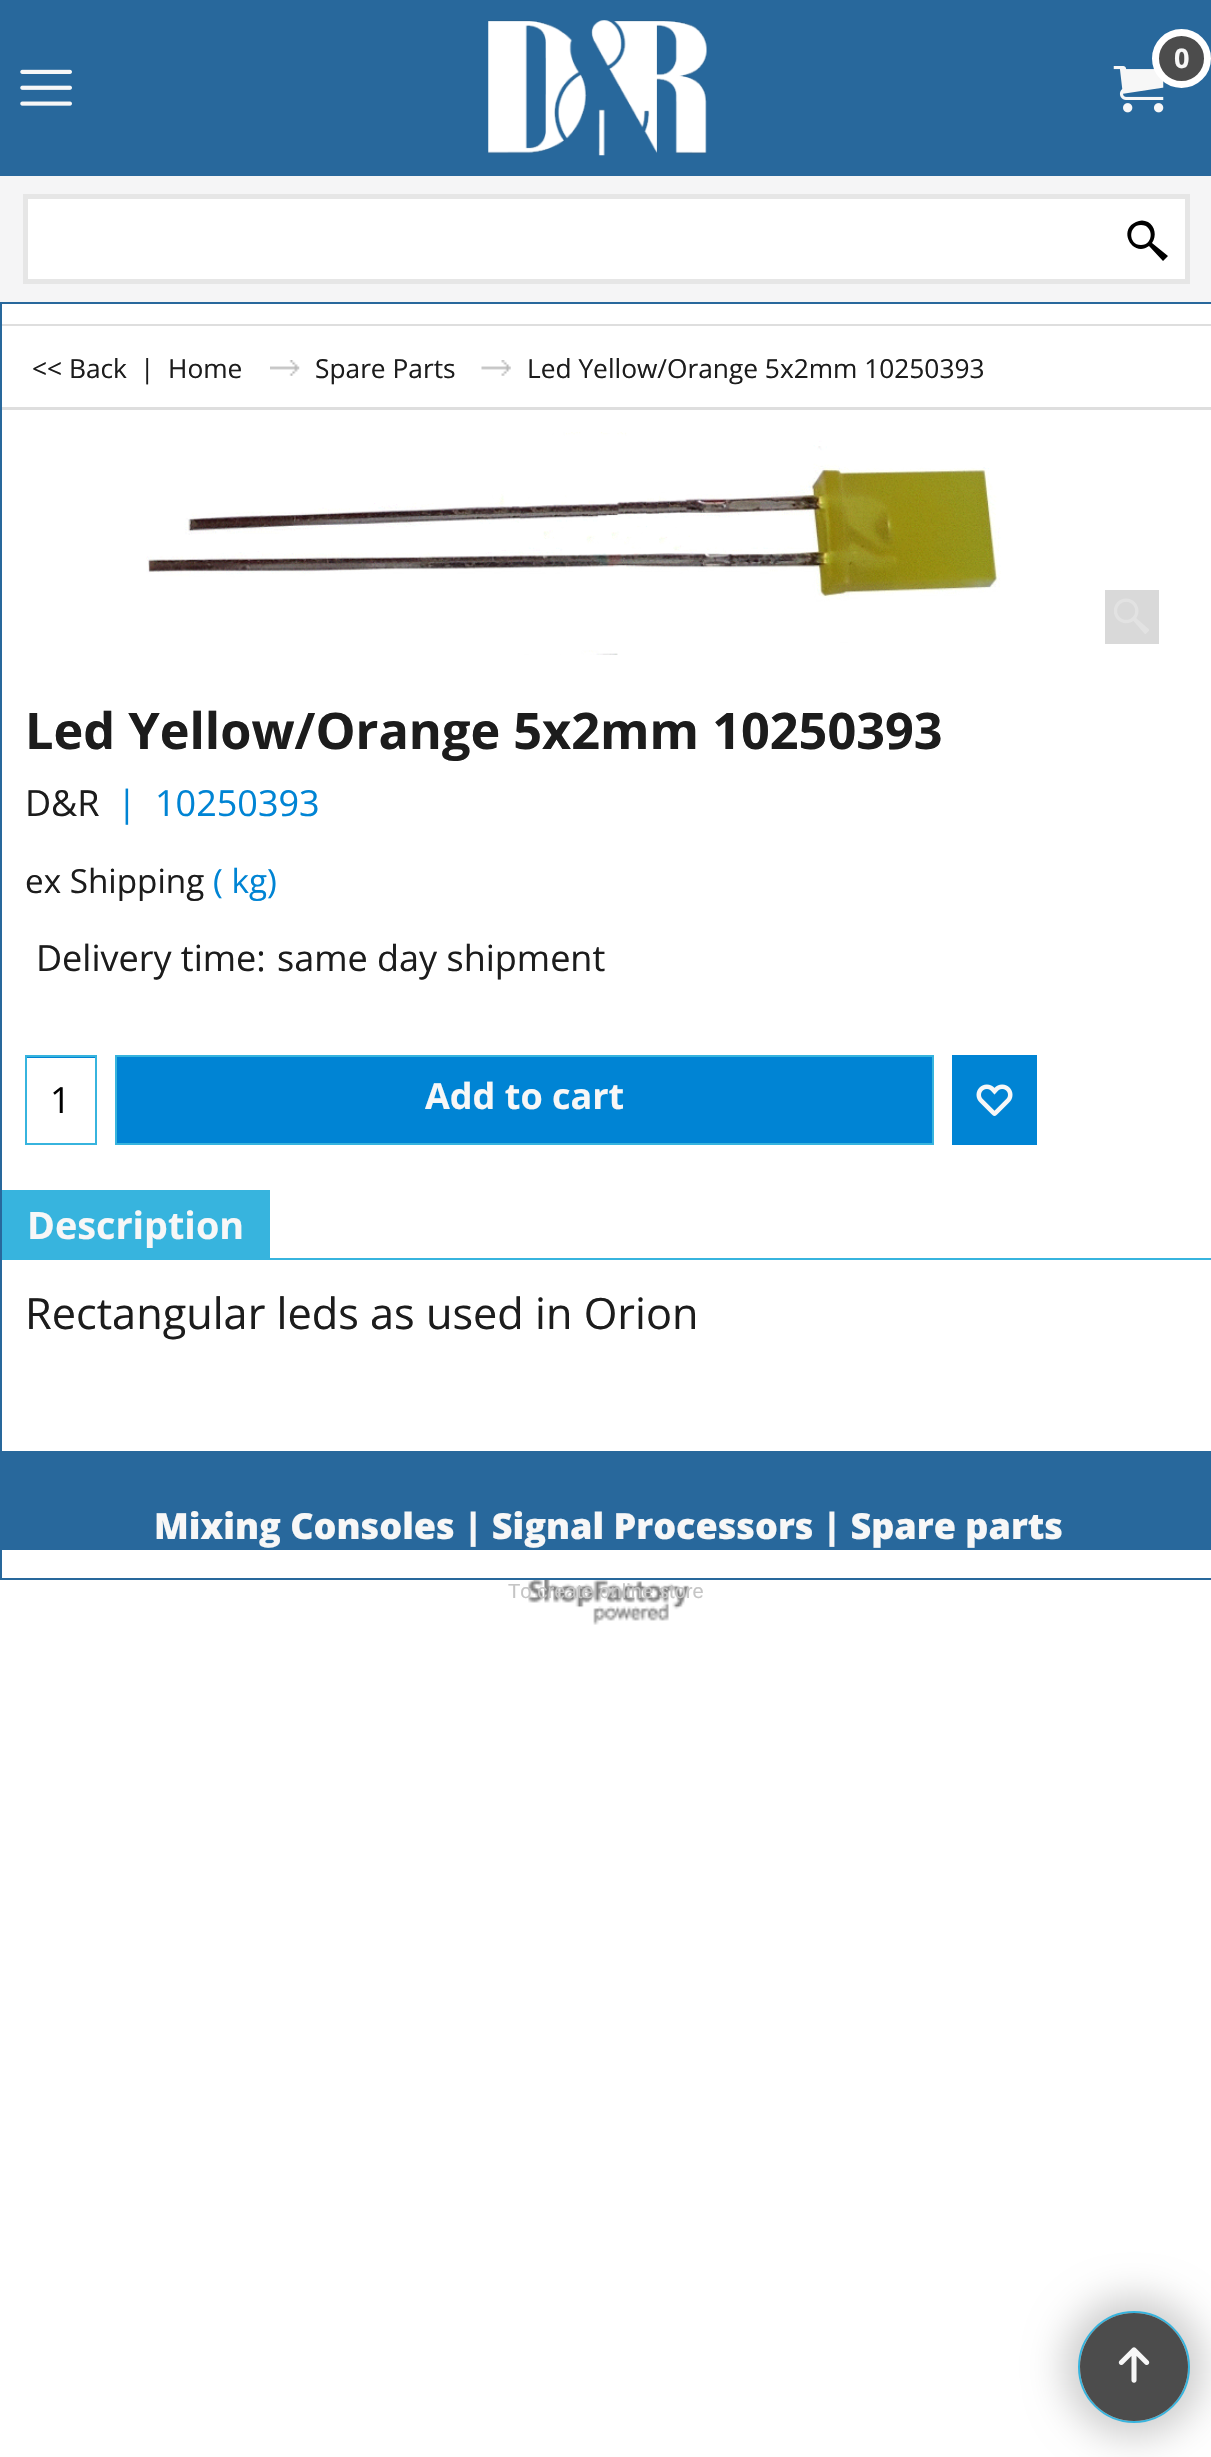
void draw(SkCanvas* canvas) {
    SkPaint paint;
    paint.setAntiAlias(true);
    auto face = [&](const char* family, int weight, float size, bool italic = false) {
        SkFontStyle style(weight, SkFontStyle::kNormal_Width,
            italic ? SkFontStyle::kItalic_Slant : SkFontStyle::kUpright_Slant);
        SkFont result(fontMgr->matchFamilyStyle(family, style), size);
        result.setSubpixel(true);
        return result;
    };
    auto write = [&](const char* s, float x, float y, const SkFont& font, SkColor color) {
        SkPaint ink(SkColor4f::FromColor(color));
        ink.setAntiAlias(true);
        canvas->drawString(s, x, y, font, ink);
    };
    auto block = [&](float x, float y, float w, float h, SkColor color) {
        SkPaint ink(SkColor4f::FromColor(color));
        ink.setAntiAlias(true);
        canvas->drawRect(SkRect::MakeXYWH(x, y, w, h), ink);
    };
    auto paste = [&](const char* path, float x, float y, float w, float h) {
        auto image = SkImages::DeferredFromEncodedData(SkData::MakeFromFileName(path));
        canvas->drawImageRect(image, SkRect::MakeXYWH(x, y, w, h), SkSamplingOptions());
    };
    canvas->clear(SK_ColorWHITE);
    block(0, 0, 1211, 176, SkColorSetRGB(40, 104, 156));
    paste("pic1.png", 488, 20, 219, 136);
    paste("pic2.png", 1113, 66, 51, 47);
    paint.setColor(SkColorSetRGB(76, 76, 76));
    canvas->drawCircle(1181.5f, 58.5f, 26, paint);
    paint.setStyle(SkPaint::kStroke_Style);
    paint.setStrokeWidth(7);
    paint.setColor(SK_ColorWHITE);
    canvas->drawCircle(1181.5f, 58.5f, 26, paint);
    auto kFont1 = face("Open Sans", 700, 27);
    write("0", 1174, 68, kFont1, SkColorSetRGB(247, 247, 247));
    paste("pic3.png", 20, 69, 52, 37);
    block(0, 176, 1211, 126, SkColorSetRGB(245, 245, 246));
    paint.setStyle(SkPaint::kFill_Style);
    canvas->drawRect(SkRect::MakeXYWH(25.5f, 196.5f, 1162, 85), paint);
    paint.setStyle(SkPaint::kStroke_Style);
    paint.setStrokeWidth(5);
    paint.setColor(SkColorSetRGB(230, 230, 230));
    canvas->drawRect(SkRect::MakeXYWH(25.5f, 196.5f, 1162, 85), paint);
    paint.setStyle(SkPaint::kFill_Style);
    paint.setColor(SK_ColorBLACK);
    canvas->drawPath(SkPathBuilder().moveTo(1152, 243).cubicTo(1157, 236, 1155, 226, 1148, 222).cubicTo(1144, 220, 1140, 220, 1136, 222).cubicTo(1117, 230, 1133, 258, 1149, 246).lineTo(1163, 261).lineTo(1168, 256).close().moveTo(1141, 245).cubicTo(1128, 245, 1128, 225, 1141, 225).cubicTo(1154, 225, 1154, 245, 1141, 245).close().detach(), paint);
    paint.setStyle(SkPaint::kStroke_Style);
    paint.setStrokeWidth(2);
    paint.setColor(SkColorSetRGB(40, 104, 156));
    canvas->drawRect(SkRect::MakeXYWH(1, 303, 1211, 1276), paint);
    block(2, 407, 1209, 1, SkColorSetRGB(222, 222, 222));
    canvas->save();
    canvas->clipRect(SkRect::MakeXYWH(2, 304, 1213, 1147));
    paint.setColor(SkColorSetRGB(222, 222, 222));
    canvas->drawRect(SkRect::MakeXYWH(-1, 325, 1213, 84), paint);
    canvas->restore();
    auto kFont2 = face("Open Sans", 400, 26.3f);
    write("<< Back", 32, 378, kFont2, SkColorSetRGB(28, 28, 28));
    write("|", 140, 378, kFont2, SkColorSetRGB(28, 28, 28));
    write("Home", 168, 378, kFont2, SkColorSetRGB(28, 28, 28));
    paste("pic4.png", 270, 360, 30, 16);
    write("Spare Parts", 315, 378, kFont2, SkColorSetRGB(28, 28, 28));
    paste("pic5.png", 481, 360, 30, 16);
    write("Led Yellow/Orange 5x2mm 10250393", 527, 378, kFont2, SkColorSetRGB(28, 28, 28));
    paste("pic6.png", 146, 432, 855, 223);
    block(1105, 590, 54, 54, SkColorSetRGB(217, 217, 217));
    paste("pic7.png", 1114, 598, 35, 36);
    auto kFont3 = face("Open Sans", 700, 50.4f);
    write("Led Yellow/Orange 5x2mm 10250393", 25, 749, kFont3, SkColorSetRGB(28, 28, 28));
    auto kFont4 = face("Open Sans", 400, 36);
    write("D&R", 25, 816, kFont4, SkColorSetRGB(28, 28, 28));
    write("|", 117, 816, kFont4, SkColorSetRGB(0, 132, 212));
    write("10250393", 155, 816, kFont4, SkColorSetRGB(0, 132, 212));
    auto kFont5 = face("Open Sans", 400, 33.25f);
    write("ex Shipping", 25, 893, kFont5, SkColorSetRGB(28, 28, 28));
    write("( kg)", 213, 893, kFont5, SkColorSetRGB(0, 132, 212));
    write("Delivery time:", 36, 971, kFont4, SkColorSetRGB(28, 28, 28));
    write("same day shipment", 277, 971, kFont4, SkColorSetRGB(28, 28, 28));
    block(27, 1057, 68, 1, SkColorSetRGB(0, 132, 212));
    paint.setColor(SkColorSetRGB(55, 180, 222));
    canvas->drawRect(SkRect::MakeXYWH(26, 1056, 70, 88), paint);
    write("1", 50, 1113, kFont4, SK_ColorBLACK);
    paint.setStyle(SkPaint::kFill_Style);
    paint.setColor(SkColorSetRGB(0, 132, 212));
    canvas->drawRect(SkRect::MakeXYWH(116, 1056, 817, 88), paint);
    paint.setStyle(SkPaint::kStroke_Style);
    paint.setColor(SkColorSetRGB(55, 180, 222));
    canvas->drawRect(SkRect::MakeXYWH(116, 1056, 817, 88), paint);
    auto kFont6 = face("Open Sans", 700, 36);
    write("Add to cart", 425, 1109, kFont6, SkColorSetRGB(247, 247, 247));
    block(952, 1055, 85, 90, SkColorSetRGB(0, 132, 212));
    paste("pic8.png", 976, 1084, 37, 32);
    block(2, 1190, 268, 70, SkColorSetRGB(55, 180, 222));
    auto kFont7 = face("Open Sans", 700, 37.75f);
    write("Description", 27, 1239, kFont7, SkColorSetRGB(247, 247, 247));
    block(270, 1258, 941, 2, SkColorSetRGB(55, 180, 222));
    auto kFont8 = face("Open Sans", 400, 43.25f);
    write("Rectangular leds as used in Orion", 25, 1329, kFont8, SkColorSetRGB(28, 28, 28));
    block(2, 1451, 1209, 99, SkColorSetRGB(40, 104, 156));
    auto kFont9 = face("Open Sans", 800, 36);
    write("Mixing Consoles | Signal Processors | Spare parts", 154, 1539, kFont9, SkColorSetRGB(247, 247, 247));
    paste("pic9.png", 528, 1580, 162, 45);
    auto kFont10 = face("Liberation Sans", 400, 20.25f);
    write("To create online store", 508, 1598, kFont10, SkColorSetRGB(197, 197, 197));
    paint.setStyle(SkPaint::kFill_Style);
    paint.setColor(SkColorSetARGB(51, 0, 0, 0));
    paint.setMaskFilter(SkMaskFilter::MakeBlur(kNormal_SkBlurStyle, 19));
    canvas->drawRoundRect(SkRect::MakeXYWH(1064, 2297, 140, 140), 70, 70, paint);
    paint.setMaskFilter(nullptr);
    paint.setStyle(SkPaint::kStroke_Style);
    paint.setColor(SkColorSetRGB(55, 180, 222));
    canvas->drawCircle(1134, 2367, 55, paint);
    paint.setStyle(SkPaint::kFill_Style);
    paint.setColor(SkColorSetRGB(76, 76, 76));
    canvas->drawCircle(1134, 2367, 54, paint);
    paste("pic10.png", 1118, 2347, 32, 36);
}
